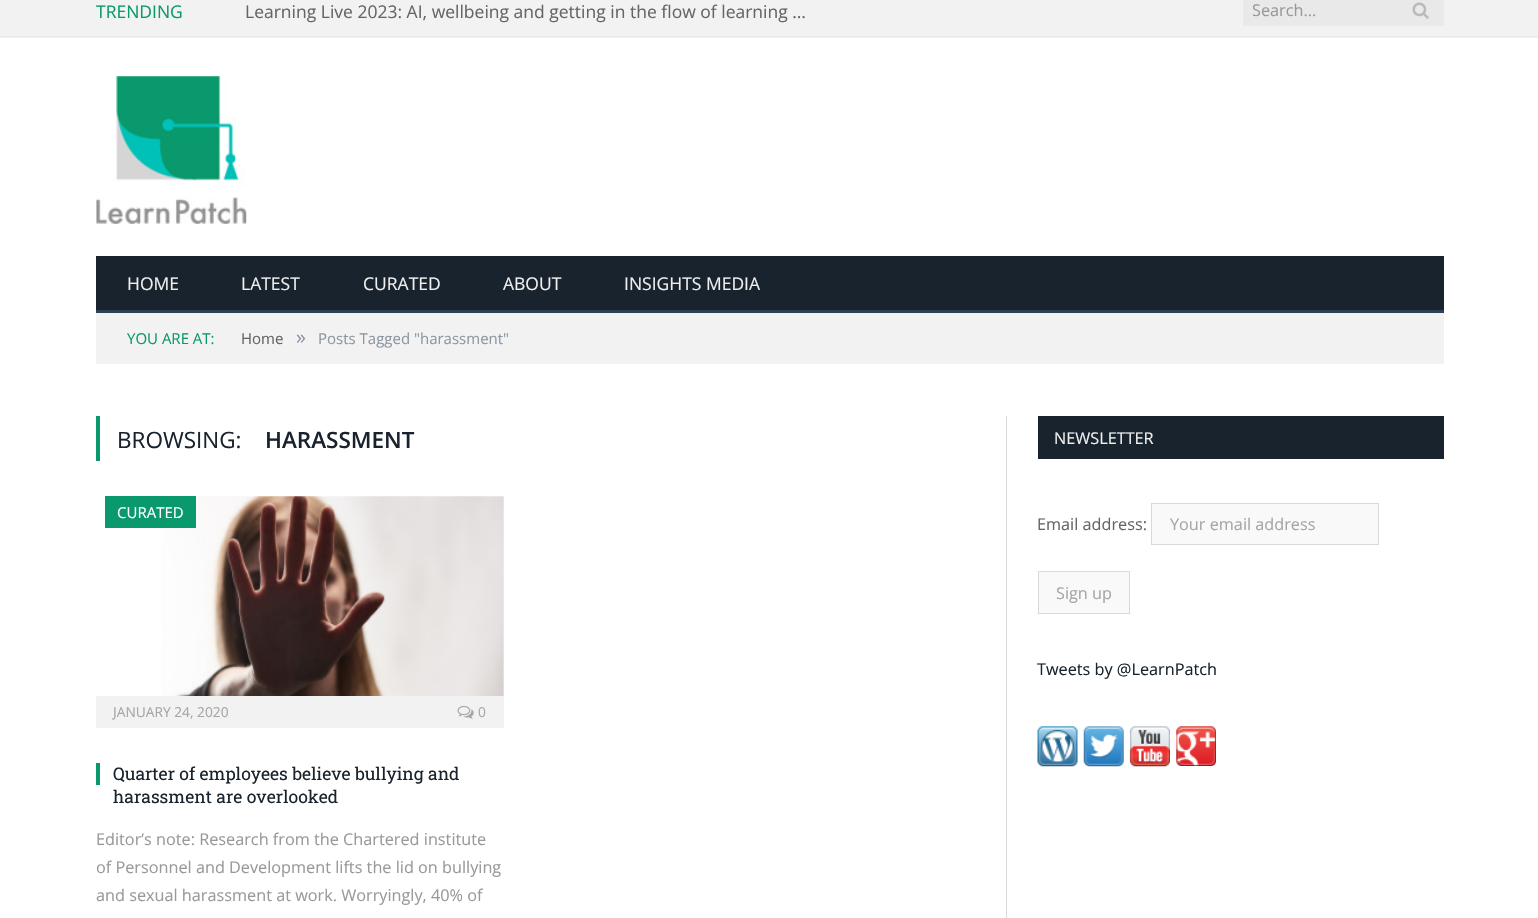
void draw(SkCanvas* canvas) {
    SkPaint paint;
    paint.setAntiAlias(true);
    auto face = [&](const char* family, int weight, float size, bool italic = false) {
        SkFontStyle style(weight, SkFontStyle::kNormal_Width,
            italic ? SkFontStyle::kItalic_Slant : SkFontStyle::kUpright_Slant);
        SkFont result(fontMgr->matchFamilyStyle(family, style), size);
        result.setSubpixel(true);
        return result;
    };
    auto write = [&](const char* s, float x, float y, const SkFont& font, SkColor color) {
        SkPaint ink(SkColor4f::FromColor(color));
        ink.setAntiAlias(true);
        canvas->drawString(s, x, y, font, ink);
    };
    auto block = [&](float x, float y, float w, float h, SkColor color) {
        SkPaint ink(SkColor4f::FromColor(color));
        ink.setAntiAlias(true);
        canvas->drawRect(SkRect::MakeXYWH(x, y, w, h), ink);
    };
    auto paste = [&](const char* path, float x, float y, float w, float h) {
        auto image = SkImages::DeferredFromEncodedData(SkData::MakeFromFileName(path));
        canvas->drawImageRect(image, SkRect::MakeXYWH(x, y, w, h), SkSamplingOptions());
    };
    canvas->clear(SK_ColorWHITE);
    block(0, 0, 1538, 38, SkColorSetRGB(242, 242, 242));
    block(0, 36, 1538, 1, SkColorSetRGB(231, 231, 231));
    auto kFont1 = face("Open Sans", 400, 17.5f);
    write("TRENDING", 96, 18, kFont1, SkColorSetRGB(10, 153, 109));
    write("Learning Live 2023: AI, wellbeing and getting in the flow of learning …", 245, 18, kFont1, SkColorSetRGB(101, 101, 101));
    block(1243, 0, 201, 26, SkColorSetRGB(233, 233, 233));
    canvas->save();
    canvas->clipRect(SkRect::MakeXYWH(1253, 0, 162, 21));
    auto kFont2 = face("Open Sans", 400, 16.25f);
    write("Search...", 1252, 16, kFont2, SkColorSetRGB(153, 153, 153));
    canvas->restore();
    paste("pic1.png", 1412, 2, 17, 17);
    paste("pic2.png", 96, 76, 151, 148);
    block(96, 256, 1348, 54, SkColorSetRGB(25, 35, 45));
    block(96, 310, 1348, 3, SkColorSetRGB(47, 65, 84));
    write("HOME", 127, 290, kFont1, SkColorSetRGB(239, 239, 239));
    write("LATEST", 241, 290, kFont1, SkColorSetRGB(239, 239, 239));
    write("CURATED", 363, 290, kFont1, SkColorSetRGB(239, 239, 239));
    write("ABOUT", 503, 290, kFont1, SkColorSetRGB(239, 239, 239));
    write("INSIGHTS MEDIA", 624, 290, kFont1, SkColorSetRGB(239, 239, 239));
    block(96, 313, 1348, 51, SkColorSetRGB(242, 242, 242));
    auto kFont3 = face("Open Sans", 400, 15);
    write("YOU ARE AT:", 127, 344, kFont3, SkColorSetRGB(10, 153, 109));
    write("Home", 241, 344, kFont3, SkColorSetRGB(101, 101, 101));
    auto kFont4 = face("Open Sans", 400, 20);
    write("»", 296, 344, kFont4, SkColorSetRGB(141, 151, 161));
    write("Posts Tagged \"harassment\"", 318, 344, kFont3, SkColorSetRGB(141, 151, 161));
    block(96, 416, 4, 45, SkColorSetRGB(10, 153, 109));
    auto kFont5 = face("Open Sans", 400, 22.5f);
    write("BROWSING:", 117, 448, kFont5, SkColorSetRGB(25, 35, 45));
    auto kFont6 = face("Open Sans", 600, 22.5f);
    write("HARASSMENT", 265, 448, kFont6, SkColorSetRGB(25, 35, 45));
    paste("pic3.png", 161, 496, 343, 200);
    block(105, 496, 91, 32, SkColorSetRGB(10, 153, 109));
    write("CURATED", 117, 518, kFont3, SK_ColorWHITE);
    block(96, 696, 408, 32, SkColorSetRGB(242, 242, 242));
    auto kFont7 = face("Open Sans", 400, 13.75f);
    write("JANUARY 24, 2020", 113, 717, kFont7, SkColorSetRGB(166, 166, 166));
    paste("pic4.png", 457, 705, 17, 14);
    write("0", 478, 717, kFont7, SkColorSetRGB(166, 166, 166));
    block(96, 763, 4, 22, SkColorSetRGB(10, 153, 109));
    auto kFont8 = face("Roboto Slab", 400, 17.5f);
    write("Quarter of employees believe bullying and", 113, 780, kFont8, SkColorSetRGB(25, 35, 45));
    write("harassment are overlooked", 113, 803, kFont8, SkColorSetRGB(25, 35, 45));
    write("Editor’s note: Research from the Chartered institute", 96, 845, kFont2, SkColorSetRGB(153, 153, 153));
    write("of Personnel and Development lifts the lid on bullying", 96, 873, kFont2, SkColorSetRGB(153, 153, 153));
    write("and sexual harassment at work. Worryingly, 40% of", 96, 901, kFont2, SkColorSetRGB(153, 153, 153));
    block(1006, 416, 1, 502, SkColorSetRGB(217, 217, 217));
    block(1038, 416, 406, 43, SkColorSetRGB(25, 35, 45));
    write("NEWSLETTER", 1054, 444, kFont2, SkColorSetRGB(239, 239, 239));
    write("Email address:", 1037, 530, kFont2, SkColorSetRGB(101, 101, 101));
    paint.setColor(SkColorSetRGB(249, 249, 249));
    canvas->drawRect(SkRect::MakeXYWH(1151.5f, 503.5f, 227, 41), paint);
    paint.setStyle(SkPaint::kStroke_Style);
    paint.setStrokeWidth(1);
    paint.setColor(SkColorSetRGB(217, 217, 217));
    canvas->drawRect(SkRect::MakeXYWH(1151.5f, 503.5f, 227, 41), paint);
    write("Your email address", 1170, 530, kFont2, SkColorSetRGB(166, 166, 166));
    paint.setStyle(SkPaint::kFill_Style);
    paint.setColor(SkColorSetRGB(249, 249, 249));
    canvas->drawRect(SkRect::MakeXYWH(1038.5f, 571.5f, 91, 42), paint);
    paint.setStyle(SkPaint::kStroke_Style);
    paint.setColor(SkColorSetRGB(217, 217, 217));
    canvas->drawRect(SkRect::MakeXYWH(1038.5f, 571.5f, 91, 42), paint);
    write("Sign up", 1056, 599, kFont2, SkColorSetRGB(166, 166, 166));
    write("Tweets by @LearnPatch", 1037, 675, kFont2, SkColorSetRGB(25, 35, 45));
    paste("pic5.png", 1037, 726, 41, 41);
    paste("pic6.png", 1083, 726, 41, 41);
    paste("pic7.png", 1129, 726, 41, 41);
    paste("pic8.png", 1176, 726, 40, 40);
}
